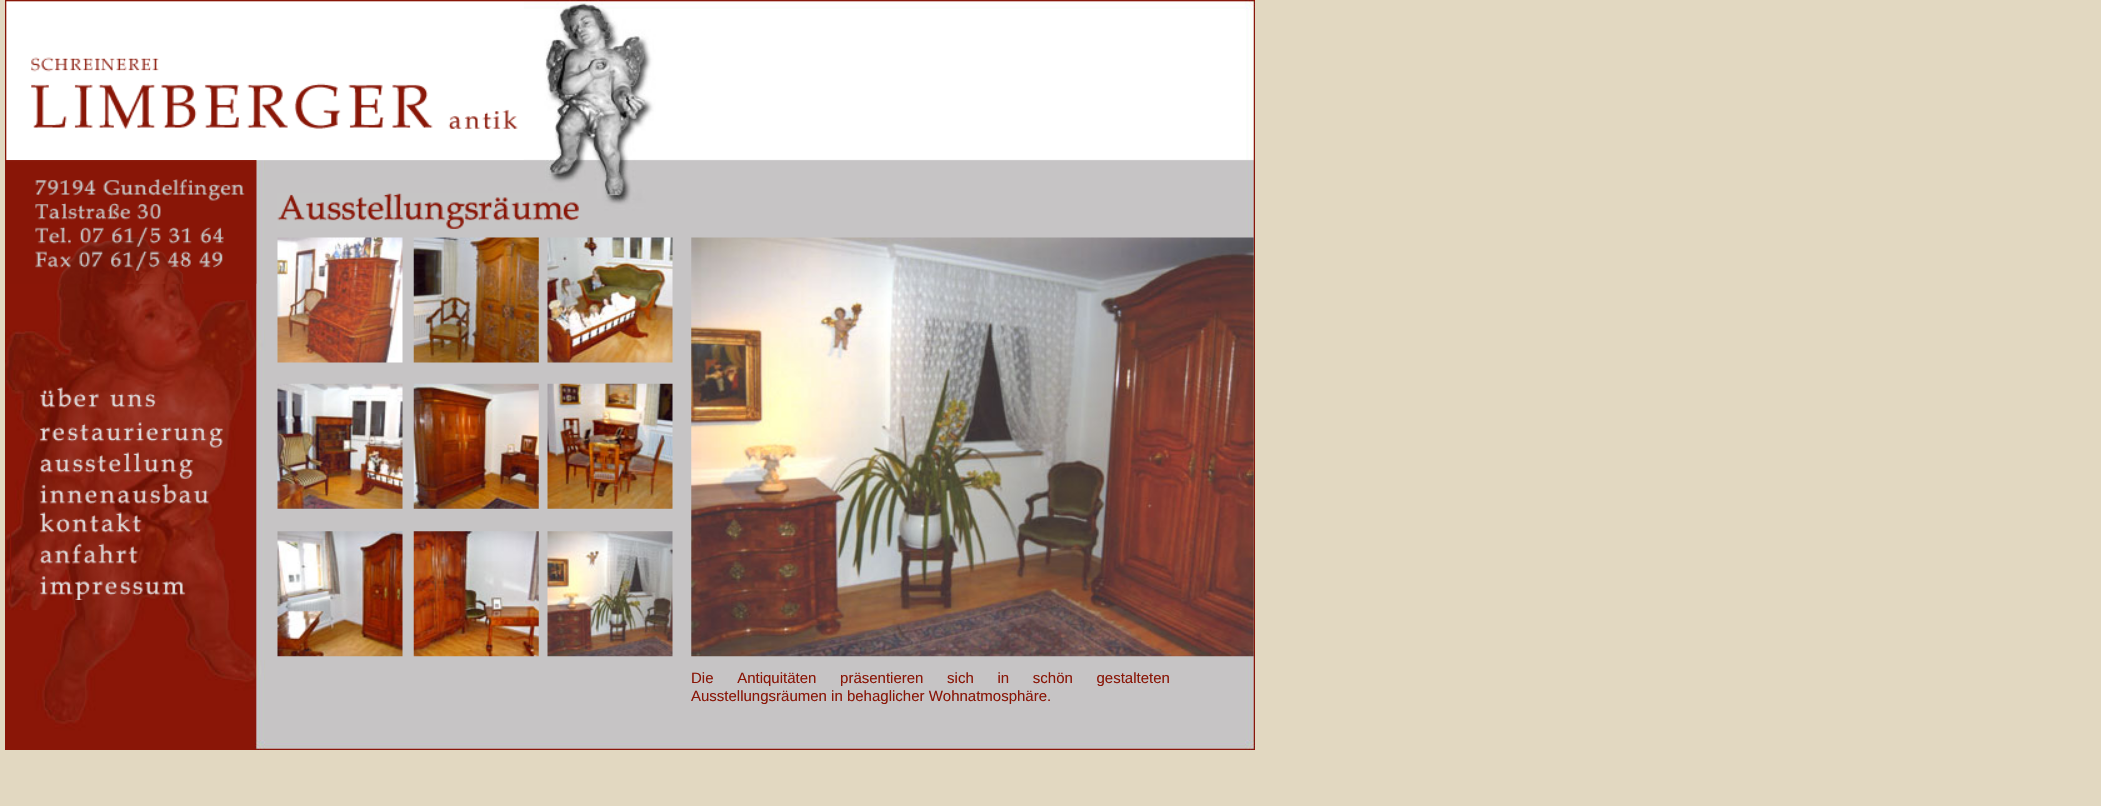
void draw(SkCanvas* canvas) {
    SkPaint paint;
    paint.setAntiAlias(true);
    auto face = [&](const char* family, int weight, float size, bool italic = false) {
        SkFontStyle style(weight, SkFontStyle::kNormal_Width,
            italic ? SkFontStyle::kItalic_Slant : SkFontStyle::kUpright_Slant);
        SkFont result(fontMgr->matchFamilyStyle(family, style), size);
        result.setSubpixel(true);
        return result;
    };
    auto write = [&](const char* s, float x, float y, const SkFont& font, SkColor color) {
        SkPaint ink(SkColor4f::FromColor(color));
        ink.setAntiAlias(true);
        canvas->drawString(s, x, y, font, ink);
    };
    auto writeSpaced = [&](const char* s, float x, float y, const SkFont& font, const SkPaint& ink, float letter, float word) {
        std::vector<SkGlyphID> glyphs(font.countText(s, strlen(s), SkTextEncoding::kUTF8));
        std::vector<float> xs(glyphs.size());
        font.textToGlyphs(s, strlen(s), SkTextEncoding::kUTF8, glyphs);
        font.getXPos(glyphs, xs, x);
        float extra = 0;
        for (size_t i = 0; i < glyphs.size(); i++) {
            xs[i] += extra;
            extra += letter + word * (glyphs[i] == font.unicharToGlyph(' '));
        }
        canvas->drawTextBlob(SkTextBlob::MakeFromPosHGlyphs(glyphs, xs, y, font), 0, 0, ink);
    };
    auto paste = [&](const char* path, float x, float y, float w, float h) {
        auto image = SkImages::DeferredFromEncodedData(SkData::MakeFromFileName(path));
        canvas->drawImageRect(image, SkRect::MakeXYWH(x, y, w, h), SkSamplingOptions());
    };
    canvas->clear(SkColorSetRGB(226, 216, 193));
    paste("pic1.png", 5, 0, 1250, 750);
    paste("pic2.png", 5, 0, 519, 160);
    paste("pic3.png", 5, 160, 252, 124);
    paste("pic4.png", 277, 193, 302, 36);
    paste("pic5.png", 277, 237, 126, 126);
    paste("pic6.png", 413, 237, 126, 126);
    paste("pic7.png", 547, 237, 126, 126);
    paste("pic8.png", 691, 237, 563, 420);
    paste("pic9.png", 10, 387, 146, 21);
    paste("pic10.png", 39, 422, 185, 26);
    paste("pic11.png", 39, 452, 155, 27);
    paste("pic12.png", 40, 483, 169, 21);
    paste("pic13.png", 10, 512, 132, 27);
    paste("pic14.png", 10, 539, 128, 30);
    paste("pic15.png", 10, 569, 176, 31);
    paste("pic16.png", 277, 383, 126, 126);
    paste("pic17.png", 413, 383, 126, 126);
    paste("pic18.png", 547, 383, 126, 126);
    paste("pic19.png", 277, 531, 126, 126);
    paste("pic20.png", 413, 531, 126, 126);
    paste("pic21.png", 547, 531, 126, 126);
    auto kFont1 = face("Liberation Sans", 400, 15);
    paint.setColor(SkColorSetRGB(137, 22, 7));
    writeSpaced("Die Antiquitäten präsentieren sich in schön gestalteten", 691, 683, kFont1, paint, 0, 19.5f);
    write("Ausstellungsräumen in behaglicher Wohnatmosphäre.", 691, 701, kFont1, SkColorSetRGB(137, 22, 7));
}
